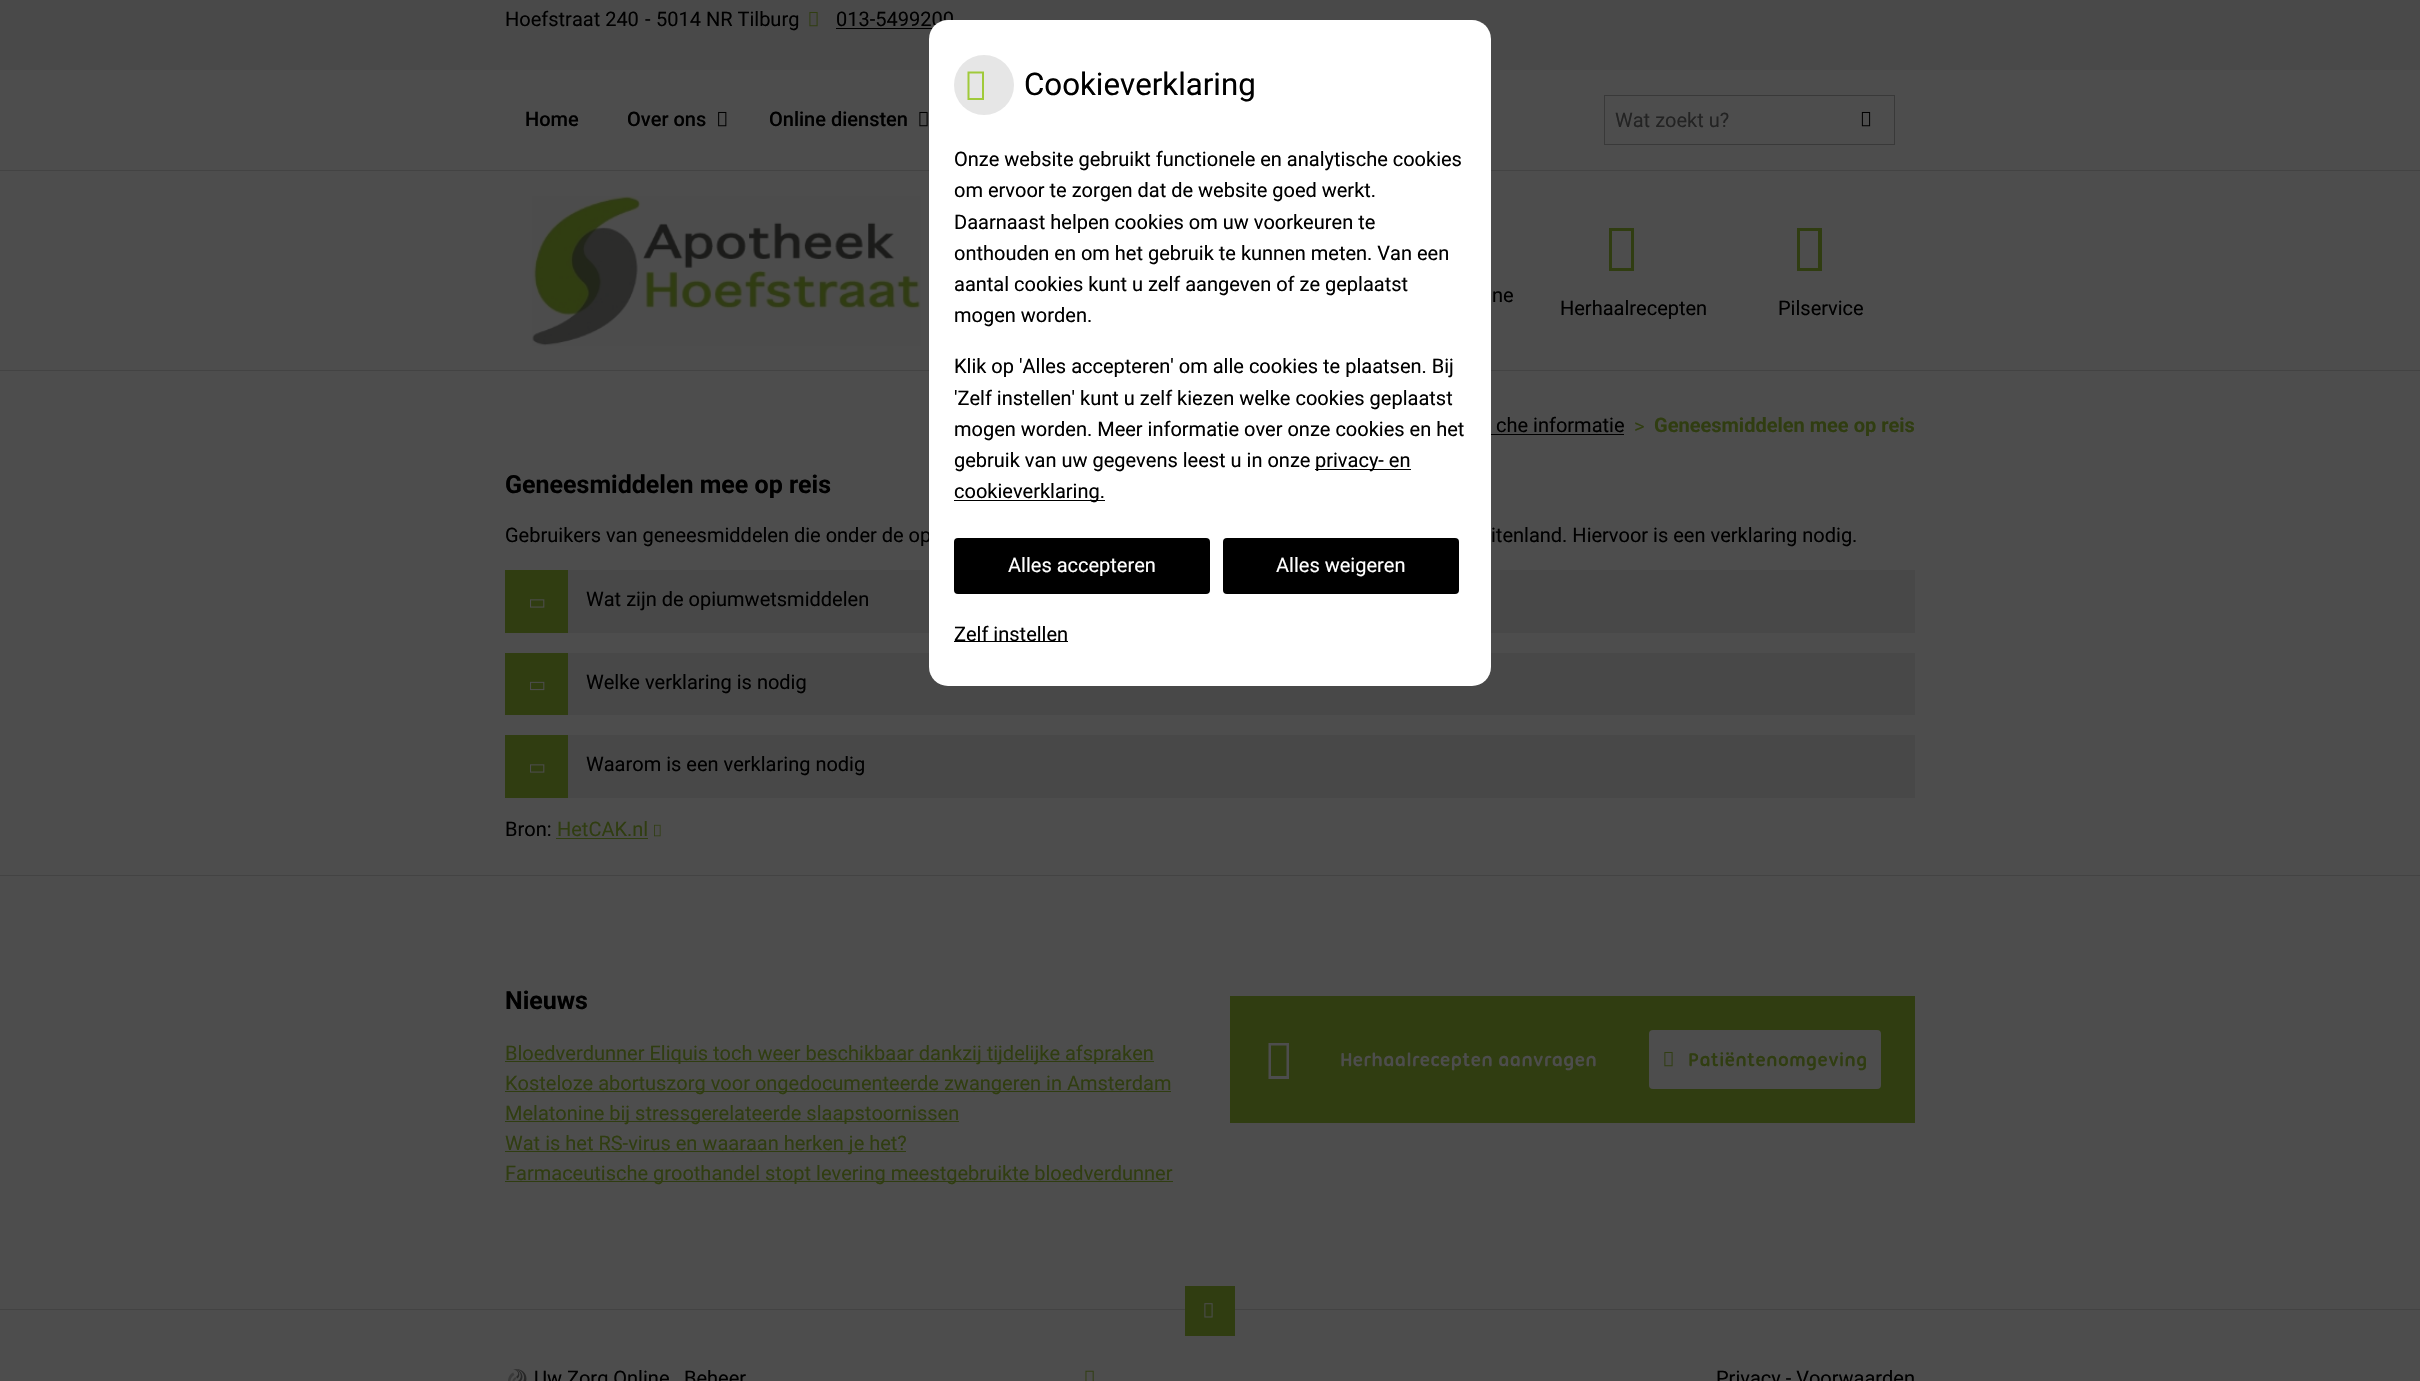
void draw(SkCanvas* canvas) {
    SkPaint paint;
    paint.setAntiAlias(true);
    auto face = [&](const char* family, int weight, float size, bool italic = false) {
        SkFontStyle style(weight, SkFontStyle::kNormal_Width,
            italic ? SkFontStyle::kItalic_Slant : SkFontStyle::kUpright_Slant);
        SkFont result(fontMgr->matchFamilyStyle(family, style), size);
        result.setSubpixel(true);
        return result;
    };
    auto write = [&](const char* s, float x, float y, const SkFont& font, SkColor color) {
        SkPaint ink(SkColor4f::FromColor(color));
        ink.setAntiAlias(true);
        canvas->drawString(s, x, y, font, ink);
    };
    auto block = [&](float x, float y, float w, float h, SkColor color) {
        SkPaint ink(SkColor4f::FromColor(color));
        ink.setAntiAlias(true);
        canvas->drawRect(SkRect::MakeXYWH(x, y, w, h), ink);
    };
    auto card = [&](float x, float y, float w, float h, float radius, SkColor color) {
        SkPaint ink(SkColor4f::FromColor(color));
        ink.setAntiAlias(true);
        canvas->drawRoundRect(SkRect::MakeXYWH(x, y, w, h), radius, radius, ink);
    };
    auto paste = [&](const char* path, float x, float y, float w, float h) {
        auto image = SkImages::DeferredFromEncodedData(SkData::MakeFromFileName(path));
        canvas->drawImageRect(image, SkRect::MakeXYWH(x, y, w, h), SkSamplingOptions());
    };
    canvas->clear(SkColorSetRGB(77, 77, 77));
    block(0, 0, 2420, 70, SkColorSetRGB(73, 73, 73));
    auto kFont1 = face("Roboto", 400, 20);
    write("Hoefstraat 240", 505, 26, kFont1, SK_ColorBLACK);
    write("-", 645, 26, kFont1, SK_ColorBLACK);
    write("5014 NR Tilburg", 656, 26, kFont1, SK_ColorBLACK);
    paste("pic1.png", 809, 11, 9, 16);
    write("013-5499200", 836, 26, kFont1, SK_ColorBLACK);
    block(836, 28, 97, 1, SK_ColorBLACK);
    auto kFont2 = face("Roboto", 500, 20);
    write("Home", 525, 126, kFont2, SK_ColorBLACK);
    write("Over ons", 627, 126, kFont2, SK_ColorBLACK);
    paste("pic2.png", 718, 111, 9, 16);
    write("Online diensten", 769, 126, kFont2, SK_ColorBLACK);
    paste("pic3.png", 919, 111, 9, 16);
    paint.setStyle(SkPaint::kStroke_Style);
    paint.setStrokeWidth(1);
    paint.setColor(SkColorSetRGB(57, 57, 57));
    canvas->drawRect(SkRect::MakeXYWH(1604.5f, 95.5f, 290, 49), paint);
    write("Wat zoekt u?", 1615, 127, kFont1, SkColorSetRGB(35, 35, 35));
    paste("pic4.png", 1861, 111, 10, 16);
    block(0, 170, 2420, 1, SkColorSetRGB(67, 67, 67));
    block(0, 370, 2420, 1, SkColorSetRGB(67, 67, 67));
    paste("pic5.png", 532, 196, 389, 150);
    write("ne", 1492, 302, kFont1, SK_ColorBLACK);
    paint.setStyle(SkPaint::kFill_Style);
    paint.setColor(SkColorSetRGB(48, 61, 17));
    canvas->drawPath(SkPathBuilder().moveTo(1609, 271).lineTo(1609, 228).lineTo(1634, 228).lineTo(1634, 271).close().moveTo(1612, 268).lineTo(1631, 268).lineTo(1631, 231).lineTo(1612, 231).close().detach(), paint);
    write("Herhaalrecepten", 1560, 315, kFont1, SK_ColorBLACK);
    canvas->drawPath(SkPathBuilder().moveTo(1797, 271).lineTo(1797, 228).lineTo(1822, 228).lineTo(1822, 271).close().moveTo(1800, 268).lineTo(1818, 268).lineTo(1818, 231).lineTo(1800, 231).close().detach(), paint);
    write("Pilservice", 1778, 315, kFont1, SK_ColorBLACK);
    write("Gebruikers van geneesmiddelen die onder de op", 505, 542, kFont1, SK_ColorBLACK);
    block(568, 570, 1347, 63, SkColorSetRGB(72, 72, 72));
    block(568, 653, 1347, 62, SkColorSetRGB(72, 72, 72));
    card(929, 20, 562, 666, 19, SK_ColorWHITE);
    paint.setColor(SkColorSetRGB(230, 230, 230));
    canvas->drawCircle(984, 85, 30, paint);
    paint.setColor(SkColorSetRGB(160, 202, 58));
    canvas->drawPath(SkPathBuilder().moveTo(967.5f, 100).lineTo(967.5f, 71.5f).lineTo(984, 71.5f).lineTo(984, 100).close().moveTo(969.5f, 98).lineTo(982, 98).lineTo(982, 73.5f).lineTo(969.5f, 73.5f).close().detach(), paint);
    auto kFont3 = face("Roboto", 400, 31.25f);
    write("Cookieverklaring", 1024, 95, kFont3, SK_ColorBLACK);
    write("Onze website gebruikt functionele en analytische cookies", 954, 166, kFont1, SK_ColorBLACK);
    write("om ervoor te zorgen dat de website goed werkt.", 954, 197, kFont1, SK_ColorBLACK);
    write("Daarnaast helpen cookies om uw voorkeuren te", 954, 229, kFont1, SK_ColorBLACK);
    write("onthouden en om het gebruik te kunnen meten. Van een", 954, 260, kFont1, SK_ColorBLACK);
    write("aantal cookies kunt u zelf aangeven of ze geplaatst", 954, 291, kFont1, SK_ColorBLACK);
    write("mogen worden.", 954, 322, kFont1, SK_ColorBLACK);
    write("Klik op 'Alles accepteren' om alle cookies te plaatsen. Bij", 954, 373, kFont1, SK_ColorBLACK);
    write("'Zelf instellen' kunt u zelf kiezen welke cookies geplaatst", 954, 405, kFont1, SK_ColorBLACK);
    write("mogen worden. Meer informatie over onze cookies en het", 954, 436, kFont1, SK_ColorBLACK);
    write("gebruik van uw gegevens leest u in onze", 954, 467, kFont1, SK_ColorBLACK);
    block(1315, 469, 96, 1, SK_ColorBLACK);
    write("privacy- en", 1315, 467, kFont1, SK_ColorBLACK);
    block(954, 500, 151, 1, SK_ColorBLACK);
    write("cookieverklaring.", 954, 498, kFont1, SK_ColorBLACK);
    card(954, 538, 256, 56, 4, SK_ColorBLACK);
    write("Alles accepteren", 1008, 572, kFont1, SK_ColorWHITE);
    card(1223, 538, 236, 56, 4, SK_ColorBLACK);
    write("Alles weigeren", 1276, 572, kFont1, SK_ColorWHITE);
    block(954, 641, 114, 1, SK_ColorBLACK);
    write("Zelf instellen", 954, 641, kFont1, SK_ColorBLACK);
    write("che informatie", 1496, 432, kFont1, SK_ColorBLACK);
    block(1491, 434, 133, 1, SK_ColorBLACK);
    write(">", 1634, 433, kFont1, SkColorSetRGB(48, 61, 17));
    auto kFont4 = face("Roboto", 700, 20);
    write("Geneesmiddelen mee op reis", 1654, 432, kFont4, SkColorSetRGB(48, 61, 17));
    auto kFont5 = face("Roboto", 700, 25);
    write("Geneesmiddelen mee op reis", 505, 493, kFont5, SK_ColorBLACK);
    write("itenland. Hiervoor is een verklaring nodig.", 1491, 542, kFont1, SK_ColorBLACK);
    block(505, 570, 63, 63, SkColorSetRGB(48, 61, 17));
    write("Wat zijn de opiumwetsmiddelen", 586, 606, kFont1, SK_ColorBLACK);
    paste("pic6.png", 530, 599, 15, 9);
    block(505, 653, 63, 62, SkColorSetRGB(48, 61, 17));
    write("Welke verklaring is nodig", 586, 689, kFont1, SK_ColorBLACK);
    paste("pic7.png", 530, 681, 15, 10);
    block(568, 735, 1347, 63, SkColorSetRGB(72, 72, 72));
    block(505, 735, 63, 63, SkColorSetRGB(48, 61, 17));
    write("Waarom is een verklaring nodig", 586, 771, kFont1, SK_ColorBLACK);
    paste("pic6.png", 530, 764, 15, 9);
    write("Bron:", 505, 836, kFont1, SK_ColorBLACK);
    write("HetCAK.nl", 557, 836, kFont1, SkColorSetRGB(48, 61, 17));
    block(556, 838, 92, 1, SkColorSetRGB(48, 61, 17));
    paste("pic8.png", 654, 824, 7, 13);
    block(0, 875, 2420, 1, SkColorSetRGB(67, 67, 67));
    write("Nieuws", 505, 1009, kFont5, SK_ColorBLACK);
    block(505, 1061, 649, 1, SkColorSetRGB(48, 61, 17));
    write("Bloedverdunner Eliquis toch weer beschikbaar dankzij tijdelijke afspraken", 505, 1060, kFont1, SkColorSetRGB(48, 61, 17));
    block(505, 1091, 666, 1, SkColorSetRGB(48, 61, 17));
    write("Kosteloze abortuszorg voor ongedocumenteerde zwangeren in Amsterdam", 505, 1090, kFont1, SkColorSetRGB(48, 61, 17));
    block(505, 1121, 454, 1, SkColorSetRGB(48, 61, 17));
    write("Melatonine bij stressgerelateerde slaapstoornissen", 505, 1120, kFont1, SkColorSetRGB(48, 61, 17));
    block(505, 1151, 401, 1, SkColorSetRGB(48, 61, 17));
    write("Wat is het RS-virus en waaraan herken je het?", 505, 1150, kFont1, SkColorSetRGB(48, 61, 17));
    block(505, 1181, 668, 1, SkColorSetRGB(48, 61, 17));
    write("Farmaceutische groothandel stopt levering meestgebruikte bloedverdunner", 505, 1180, kFont1, SkColorSetRGB(48, 61, 17));
    block(1230, 996, 685, 127, SkColorSetRGB(48, 61, 17));
    paint.setColor(SkColorSetRGB(77, 77, 77));
    canvas->drawPath(SkPathBuilder().moveTo(1268.5f, 1079).lineTo(1268.5f, 1043).lineTo(1289, 1043).lineTo(1289, 1079).close().moveTo(1271, 1076).lineTo(1286.5f, 1076).lineTo(1286.5f, 1045.5f).lineTo(1271, 1045.5f).close().detach(), paint);
    auto kFont6 = face("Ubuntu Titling", 700, 20);
    write("Herhaalrecepten aanvragen", 1340, 1066, kFont6, SkColorSetRGB(77, 77, 77));
    card(1649, 1030, 232, 59, 4, SkColorSetRGB(77, 77, 77));
    paste("pic9.png", 1664, 1051, 9, 16);
    write("Patiëntenomgeving", 1688, 1066, kFont6, SkColorSetRGB(48, 61, 17));
    block(0, 1309, 2420, 1, SkColorSetRGB(67, 67, 67));
    block(1185, 1286, 50, 50, SkColorSetRGB(48, 61, 17));
    paste("pic10.png", 1204, 1303, 9, 15);
    paste("pic11.png", 508, 1369, 19, 12);
    write("Uw Zorg Online", 534, 1385, kFont1, SK_ColorBLACK);
    write("Beheer", 684, 1385, kFont1, SK_ColorBLACK);
    paste("pic12.png", 1085, 1370, 9, 11);
    write("Privacy - Voorwaarden", 1716, 1385, kFont1, SK_ColorBLACK);
}
